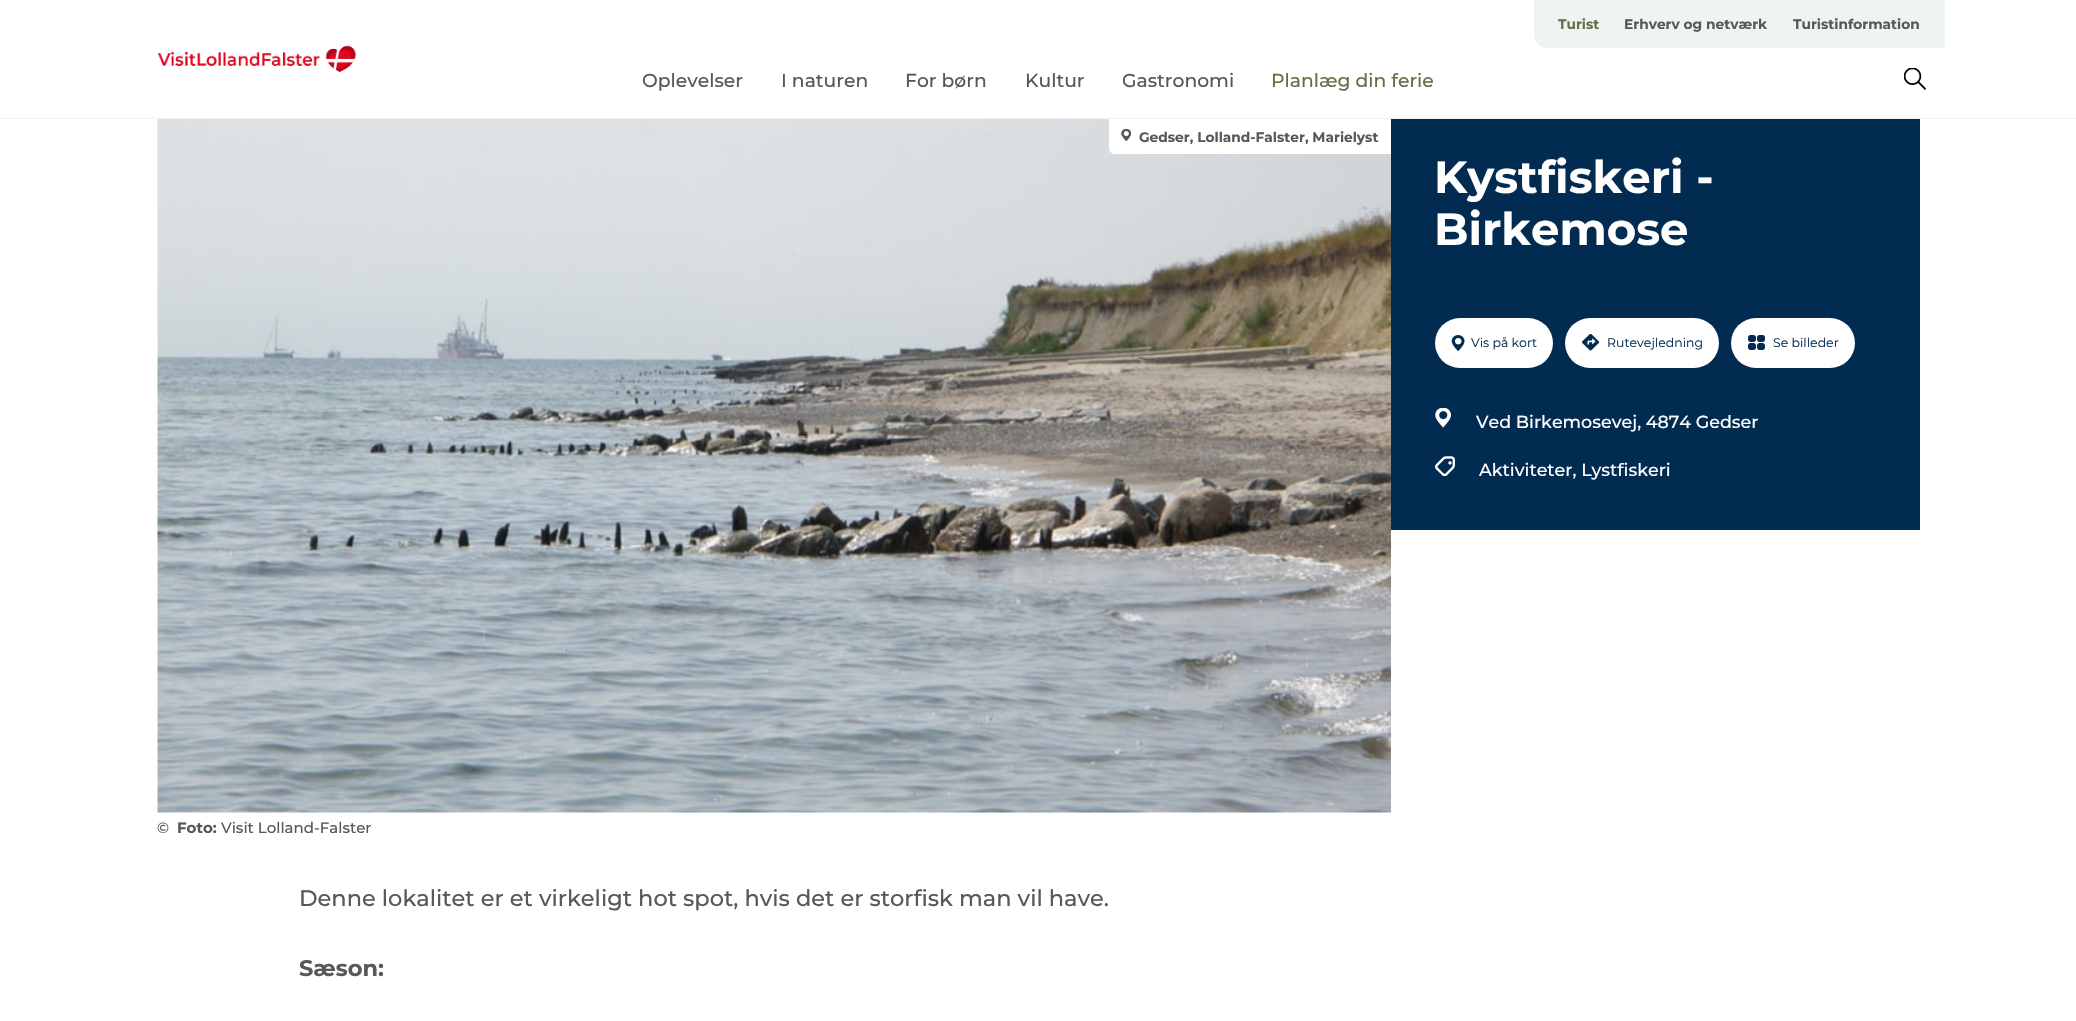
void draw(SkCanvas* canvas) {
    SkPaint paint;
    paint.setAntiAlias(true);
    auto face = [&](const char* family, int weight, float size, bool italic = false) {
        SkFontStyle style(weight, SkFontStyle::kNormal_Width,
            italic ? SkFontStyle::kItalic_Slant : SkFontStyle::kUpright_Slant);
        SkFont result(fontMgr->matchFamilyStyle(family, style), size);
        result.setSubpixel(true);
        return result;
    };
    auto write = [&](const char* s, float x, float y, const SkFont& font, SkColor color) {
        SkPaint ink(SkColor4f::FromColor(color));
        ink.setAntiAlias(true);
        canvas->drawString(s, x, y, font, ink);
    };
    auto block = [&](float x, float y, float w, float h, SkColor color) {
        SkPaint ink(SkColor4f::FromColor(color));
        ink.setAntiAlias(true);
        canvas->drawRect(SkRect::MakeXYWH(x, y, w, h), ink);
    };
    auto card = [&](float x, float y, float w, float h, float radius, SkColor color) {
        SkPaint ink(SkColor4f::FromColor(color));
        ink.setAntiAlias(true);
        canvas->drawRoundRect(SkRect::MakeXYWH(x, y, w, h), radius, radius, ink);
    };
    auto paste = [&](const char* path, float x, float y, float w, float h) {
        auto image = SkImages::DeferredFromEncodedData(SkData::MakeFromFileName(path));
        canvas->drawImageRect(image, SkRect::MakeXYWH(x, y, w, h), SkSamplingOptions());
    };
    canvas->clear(SK_ColorWHITE);
    block(0, 118, 2076, 1, SkColorSetRGB(240, 241, 243));
    paste("pic1.png", 158, 45, 199, 27);
    paint.setColor(SkColorSetRGB(239, 243, 244));
    canvas->drawPath(SkPathBuilder().moveTo(1534, 0).lineTo(1945, 0).lineTo(1945, 48).lineTo(1547, 48).cubicTo(1540, 48, 1534, 42, 1534, 35).close().detach(), paint);
    auto kFont1 = face("Montserrat", 700, 13.75f);
    write("Turist", 1558, 29, kFont1, SkColorSetRGB(104, 110, 72));
    write("Erhverv og netværk", 1624, 29, kFont1, SkColorSetRGB(88, 88, 88));
    write("Turistinformation", 1793, 29, kFont1, SkColorSetRGB(88, 88, 88));
    auto kFont2 = face("Montserrat", 500, 18.75f);
    write("Oplevelser", 642, 87, kFont2, SkColorSetRGB(88, 88, 88));
    write("I naturen", 781, 87, kFont2, SkColorSetRGB(88, 88, 88));
    write("For børn", 905, 87, kFont2, SkColorSetRGB(88, 88, 88));
    write("Kultur", 1025, 87, kFont2, SkColorSetRGB(88, 88, 88));
    write("Gastronomi", 1122, 87, kFont2, SkColorSetRGB(88, 88, 88));
    write("Planlæg din ferie", 1271, 87, kFont2, SkColorSetRGB(104, 110, 72));
    paste("pic2.png", 1904, 68, 22, 22);
    paste("pic3.png", 157, 119, 1234, 694);
    paint.setColor(SK_ColorWHITE);
    canvas->drawPath(SkPathBuilder().moveTo(1109, 119).lineTo(1391, 119).lineTo(1391, 154).lineTo(1115, 154).cubicTo(1111.5f, 154, 1109, 151.5f, 1109, 148).close().detach(), paint);
    paste("pic4.png", 1121, 129, 10, 12);
    write("Gedser, Lolland-Falster, Marielyst", 1139, 142, kFont1, SkColorSetRGB(88, 88, 88));
    auto kFont3 = face("Montserrat", 500, 15);
    write("©", 157, 833, kFont3, SkColorSetRGB(88, 88, 88));
    auto kFont4 = face("Montserrat", 700, 15);
    write("Foto:", 177, 833, kFont4, SkColorSetRGB(88, 88, 88));
    write("Visit Lolland-Falster", 221, 833, kFont3, SkColorSetRGB(88, 88, 88));
    block(1391, 119, 529, 411, SkColorSetRGB(2, 43, 82));
    auto kFont5 = face("Montserrat", 700, 45);
    write("Kystfiskeri -", 1434, 193, kFont5, SK_ColorWHITE);
    write("Birkemose", 1434, 245, kFont5, SK_ColorWHITE);
    card(1435, 318, 118, 50, 25, SK_ColorWHITE);
    paste("pic5.png", 1451, 335, 14, 16);
    auto kFont6 = face("Montserrat", 400, 12.5f);
    write("Vis på kort", 1471, 347, kFont6, SkColorSetRGB(2, 43, 82));
    card(1565, 318, 154, 50, 25, SK_ColorWHITE);
    paste("pic6.png", 1581, 334, 19, 17);
    write("Rutevejledning", 1607, 347, kFont6, SkColorSetRGB(2, 43, 82));
    card(1731, 318, 124, 50, 25, SK_ColorWHITE);
    paste("pic7.png", 1748, 335, 17, 15);
    write("Se billeder", 1773, 347, kFont6, SkColorSetRGB(2, 43, 82));
    paste("pic8.png", 1435, 408, 16, 20);
    auto kFont7 = face("Montserrat", 500, 17.5f);
    write("Ved Birkemosevej, 4874 Gedser", 1476, 428, kFont7, SK_ColorWHITE);
    paste("pic9.png", 1435, 456, 20, 20);
    write("Aktiviteter, Lystfiskeri", 1479, 476, kFont7, SK_ColorWHITE);
    auto kFont8 = face("Montserrat", 500, 22.5f);
    write("Denne lokalitet er et virkeligt hot spot, hvis det er storfisk man vil have.", 299, 906, kFont8, SkColorSetRGB(88, 88, 88));
    auto kFont9 = face("Montserrat", 700, 22.5f);
    write("Sæson:", 299, 976, kFont9, SkColorSetRGB(88, 88, 88));
}
